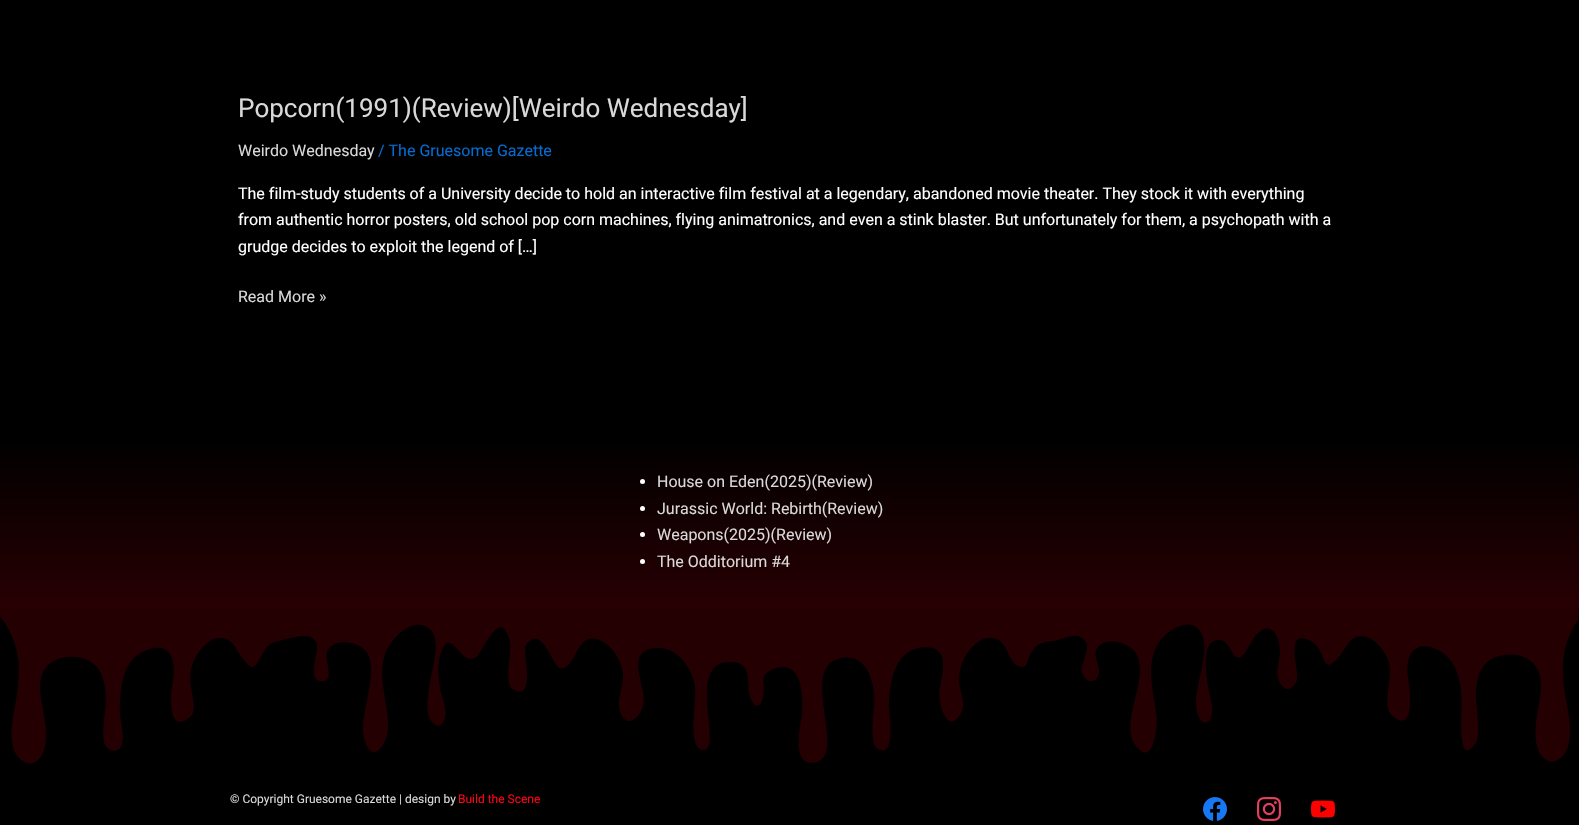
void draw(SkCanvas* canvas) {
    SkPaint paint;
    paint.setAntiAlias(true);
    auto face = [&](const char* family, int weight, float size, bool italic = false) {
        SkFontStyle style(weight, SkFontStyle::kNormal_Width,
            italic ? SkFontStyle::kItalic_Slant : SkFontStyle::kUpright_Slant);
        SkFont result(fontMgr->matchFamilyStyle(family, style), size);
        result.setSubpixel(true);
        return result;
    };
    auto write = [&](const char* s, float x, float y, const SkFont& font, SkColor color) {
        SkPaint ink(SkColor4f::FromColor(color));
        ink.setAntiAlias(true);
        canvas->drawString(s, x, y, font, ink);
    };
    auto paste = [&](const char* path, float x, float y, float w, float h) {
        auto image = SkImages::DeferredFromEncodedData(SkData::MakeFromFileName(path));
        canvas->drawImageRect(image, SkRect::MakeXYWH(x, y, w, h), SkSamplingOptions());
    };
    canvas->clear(SK_ColorBLACK);
    auto kFont1 = face("Roboto", 400, 26);
    write("Popcorn(1991)(Review)[Weirdo Wednesday]", 238, 117, kFont1, SkColorSetRGB(217, 217, 217));
    auto kFont2 = face("Roboto", 400, 16);
    write("Weirdo Wednesday", 238, 156, kFont2, SkColorSetRGB(217, 217, 217));
    write("/ The Gruesome Gazette", 378, 156, kFont2, SkColorSetRGB(4, 107, 210));
    write("The film-study students of a University decide to hold an interactive film festival at a legendary, abandoned movie theater. They stock it with everything", 238, 199, kFont2, SK_ColorWHITE);
    write("from authentic horror posters, old school pop corn machines, flying animatronics, and even a stink blaster. But unfortunately for them, a psychopath with a", 238, 225, kFont2, SK_ColorWHITE);
    write("grudge decides to exploit the legend of […]", 238, 252, kFont2, SK_ColorWHITE);
    write("Read More »", 238, 302, kFont2, SkColorSetRGB(217, 217, 217));
    {
        const SkColor colors[] = {SK_ColorBLACK, SkColorSetRGB(40, 0, 3)};
        const float stops[] = {0, 1};
        const SkPoint ends[] = {{790, 435}, {790, 609}};
        paint.setShader(SkGradientShader::MakeLinear(ends, colors, stops, 2, SkTileMode::kClamp));
        paint.setAlpha(255);
    }
    canvas->drawRect(SkRect::MakeXYWH(0, 446, 1579, 163), paint);
    paint.setShader(nullptr);
    paint.setColor(SK_ColorWHITE);
    canvas->drawCircle(642.5f, 481.5f, 2.5f, paint);
    write("House on Eden(2025)(Review)", 657, 487, kFont2, SkColorSetRGB(217, 217, 217));
    canvas->drawCircle(642.5f, 508.5f, 2.5f, paint);
    write("Jurassic World: Rebirth(Review)", 657, 514, kFont2, SkColorSetRGB(217, 217, 217));
    canvas->drawCircle(642.5f, 534.5f, 2.5f, paint);
    write("Weapons(2025)(Review)", 657, 540, kFont2, SkColorSetRGB(217, 217, 217));
    canvas->drawCircle(642.5f, 561.5f, 2.5f, paint);
    write("The Odditorium #4", 657, 567, kFont2, SkColorSetRGB(217, 217, 217));
    paste("pic1.png", 0, 609, 1579, 155);
    auto kFont3 = face("Roboto", 400, 12);
    write("© Copyright Gruesome Gazette | design by", 230, 803, kFont3, SkColorSetRGB(217, 217, 217));
    write("Build the Scene", 458, 803, kFont3, SkColorSetRGB(253, 2, 21));
    paste("pic2.png", 1203, 797, 24, 24);
    paste("pic3.png", 1257, 797, 24, 24);
    paste("pic4.png", 1311, 800, 24, 18);
}
